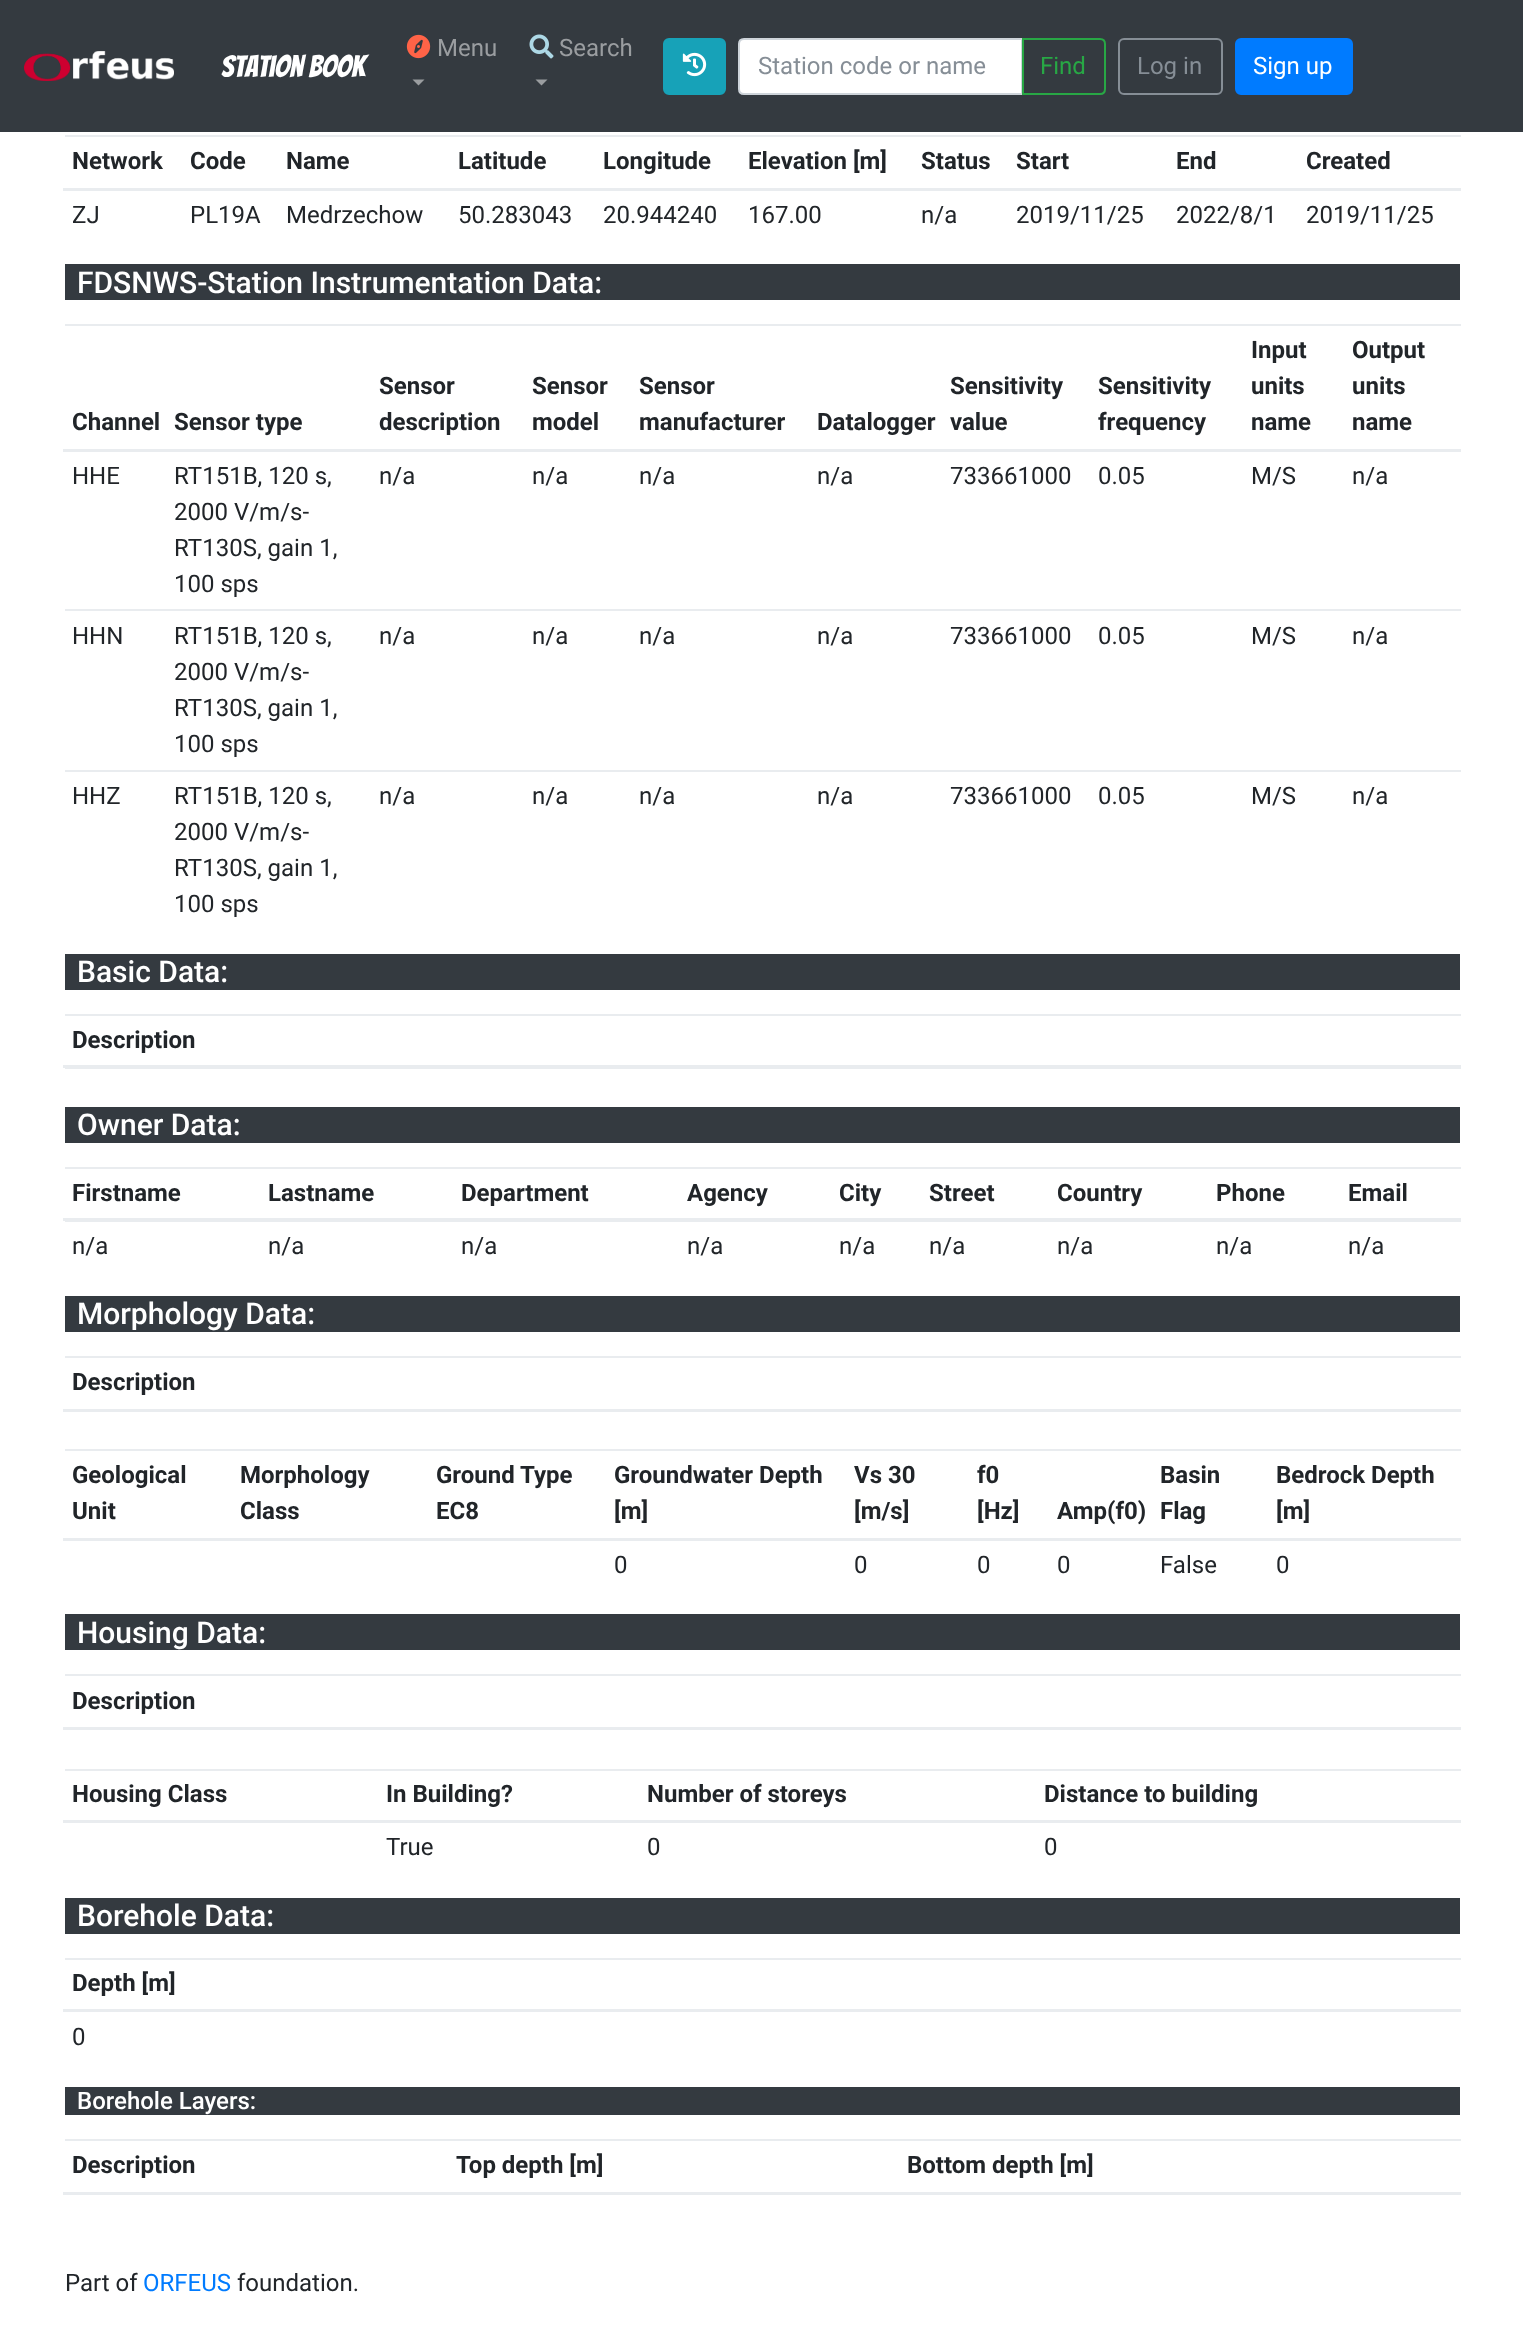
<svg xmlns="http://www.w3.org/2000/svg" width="1523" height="2326">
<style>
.a{font:30px Bangers;fill:#fff}
.b{font:24px Roboto;fill:#9a9da0}
.c{font:24px Roboto;fill:#868e96}
.d{font:24px Roboto;fill:#28a745}
.e{font:24px Roboto;fill:#fff}
.f{font:bold 24px Roboto;fill:#212529}
.g{font:24px Roboto;fill:#212529}
.h{font:500 30px Roboto;fill:#fff}
.i{font:500 24px Roboto;fill:#fff}
.j{font:24px Roboto;fill:#007bff}
</style>
<rect width="100%" height="100%" fill="#fff"/>
<path fill="#343a40" d="M0 0h1523v132H0z"/>
<image href="1.png" x="24" y="51" width="150" height="30"/>
<image href="2.png" x="406" y="34" width="25" height="25"/>
<path fill="#9a9da0" d="M412.5 79.5h12l-6 6z"/>
<image href="3.png" x="529" y="34" width="25" height="25"/>
<path fill="#9a9da0" d="M535.5 79.5h12l-6 6z"/>
<rect fill="#17a2b8" stroke="#17a2b8" stroke-width="2" x="664" y="39" width="61" height="55" rx="5"/>
<image href="4.png" x="682" y="52" width="25" height="25"/>
<path fill="#fff" stroke="#ced4da" stroke-width="2" d="M744 39h278v55h-278c-3 0-5-2-5-5v-45c0-3 2-5 5-5z"/>
<path fill="none" stroke="#28a745" stroke-width="2" d="M1023 39h77c3 0 5 2 5 5v45c0 3-2 5-5 5h-77z"/>
<rect fill="none" stroke="#868e96" stroke-width="2" x="1119" y="39" width="103" height="55" rx="5"/>
<rect fill="#007bff" stroke="#007bff" stroke-width="2" x="1236" y="39" width="116" height="55" rx="5"/>
<path fill="#e9ecef" d="M65 135h1396v2H65z"/>
<path fill="#e9ecef" d="M63 188h1398v3H63z"/>
<path fill="#343a40" d="M65 264h1395v36H65z"/>
<path fill="#e9ecef" d="M65 324h1396v2H65z"/>
<path fill="#e9ecef" d="M63 449h1398v3H63z"/>
<path fill="#e9ecef" d="M65 609h1396v2H65z"/>
<path fill="#e9ecef" d="M65 770h1396v2H65z"/>
<path fill="#343a40" d="M65 954h1395v36H65z"/>
<path fill="#e9ecef" d="M65 1014h1396v2H65z"/>
<path fill="#e9ecef" d="M63 1065h1398v3H63z"/>
<path fill="#e9ecef" d="M65 1068h1396v1H65z"/>
<path fill="#343a40" d="M65 1107h1395v36H65z"/>
<path fill="#e9ecef" d="M65 1167h1396v2H65z"/>
<path fill="#e9ecef" d="M63 1218h1398v3H63z"/>
<path fill="#e9ecef" d="M65 1221h1396v1H65z"/>
<path fill="#343a40" d="M65 1296h1395v36H65z"/>
<path fill="#e9ecef" d="M65 1356h1396v2H65z"/>
<path fill="#e9ecef" d="M63 1409h1398v3H63z"/>
<path fill="#e9ecef" d="M65 1449h1396v2H65z"/>
<path fill="#e9ecef" d="M63 1538h1398v3H63z"/>
<path fill="#343a40" d="M65 1614h1395v36H65z"/>
<path fill="#e9ecef" d="M65 1674h1396v2H65z"/>
<path fill="#e9ecef" d="M63 1727h1398v3H63z"/>
<path fill="#e9ecef" d="M65 1769h1396v2H65z"/>
<path fill="#e9ecef" d="M63 1820h1398v3H63z"/>
<path fill="#343a40" d="M65 1898h1395v36H65z"/>
<path fill="#e9ecef" d="M65 1958h1396v2H65z"/>
<path fill="#e9ecef" d="M63 2009h1398v3H63z"/>
<path fill="#343a40" d="M65 2087h1395v28H65z"/>
<path fill="#e9ecef" d="M65 2139h1396v2H65z"/>
<path fill="#e9ecef" d="M63 2192h1398v3H63z"/>
<text class="a" x="221" y="77">Station Book</text>
<text class="b" x="437" y="56">Menu</text>
<text class="b" x="559" y="56">Search</text>
<text class="c" x="758" y="74">Station code or name</text>
<text class="d" x="1040" y="74">Find</text>
<text class="c" x="1137" y="74">Log in</text>
<text class="e" x="1253" y="74">Sign up</text>
<text class="f" x="72" y="169">Network</text>
<text class="f" x="190" y="169">Code</text>
<text class="f" x="286" y="169">Name</text>
<text class="f" x="458" y="169">Latitude</text>
<text class="f" x="603" y="169">Longitude</text>
<text class="f" x="748" y="169">Elevation [m]</text>
<text class="f" x="921" y="169">Status</text>
<text class="f" x="1016" y="169">Start</text>
<text class="f" x="1176" y="169">End</text>
<text class="f" x="1306" y="169">Created</text>
<text class="g" x="72" y="223">ZJ</text>
<text class="g" x="190" y="223">PL19A</text>
<text class="g" x="286" y="223">Medrzechow</text>
<text class="g" x="458" y="223">50.283043</text>
<text class="g" x="603" y="223">20.944240</text>
<text class="g" x="748" y="223">167.00</text>
<text class="g" x="921" y="223">n/a</text>
<text class="g" x="1016" y="223">2019/11/25</text>
<text class="g" x="1176" y="223">2022/8/1</text>
<text class="g" x="1306" y="223">2019/11/25</text>
<text class="h" x="77" y="293">FDSNWS-Station Instrumentation Data:</text>
<text class="f" x="72" y="430">Channel</text>
<text class="f" x="174" y="430">Sensor type</text>
<text class="f" x="379" y="394">Sensor</text>
<text class="f" x="379" y="430">description</text>
<text class="f" x="532" y="394">Sensor</text>
<text class="f" x="532" y="430">model</text>
<text class="f" x="639" y="394">Sensor</text>
<text class="f" x="639" y="430">manufacturer</text>
<text class="f" x="817" y="430">Datalogger</text>
<text class="f" x="950" y="394">Sensitivity</text>
<text class="f" x="950" y="430">value</text>
<text class="f" x="1098" y="394">Sensitivity</text>
<text class="f" x="1098" y="430">frequency</text>
<text class="f" x="1251" y="358">Input</text>
<text class="f" x="1251" y="394">units</text>
<text class="f" x="1251" y="430">name</text>
<text class="f" x="1352" y="358">Output</text>
<text class="f" x="1352" y="394">units</text>
<text class="f" x="1352" y="430">name</text>
<text class="g" x="72" y="484">HHE</text>
<text class="g" x="174" y="484">RT151B, 120 s,</text>
<text class="g" x="174" y="520">2000 V/m/s-</text>
<text class="g" x="174" y="556">RT130S, gain 1,</text>
<text class="g" x="174" y="592">100 sps</text>
<text class="g" x="379" y="484">n/a</text>
<text class="g" x="532" y="484">n/a</text>
<text class="g" x="639" y="484">n/a</text>
<text class="g" x="817" y="484">n/a</text>
<text class="g" x="950" y="484">733661000</text>
<text class="g" x="1098" y="484">0.05</text>
<text class="g" x="1251" y="484">M/S</text>
<text class="g" x="1352" y="484">n/a</text>
<text class="g" x="72" y="644">HHN</text>
<text class="g" x="174" y="644">RT151B, 120 s,</text>
<text class="g" x="174" y="680">2000 V/m/s-</text>
<text class="g" x="174" y="716">RT130S, gain 1,</text>
<text class="g" x="174" y="752">100 sps</text>
<text class="g" x="379" y="644">n/a</text>
<text class="g" x="532" y="644">n/a</text>
<text class="g" x="639" y="644">n/a</text>
<text class="g" x="817" y="644">n/a</text>
<text class="g" x="950" y="644">733661000</text>
<text class="g" x="1098" y="644">0.05</text>
<text class="g" x="1251" y="644">M/S</text>
<text class="g" x="1352" y="644">n/a</text>
<text class="g" x="72" y="804">HHZ</text>
<text class="g" x="174" y="804">RT151B, 120 s,</text>
<text class="g" x="174" y="840">2000 V/m/s-</text>
<text class="g" x="174" y="876">RT130S, gain 1,</text>
<text class="g" x="174" y="912">100 sps</text>
<text class="g" x="379" y="804">n/a</text>
<text class="g" x="532" y="804">n/a</text>
<text class="g" x="639" y="804">n/a</text>
<text class="g" x="817" y="804">n/a</text>
<text class="g" x="950" y="804">733661000</text>
<text class="g" x="1098" y="804">0.05</text>
<text class="g" x="1251" y="804">M/S</text>
<text class="g" x="1352" y="804">n/a</text>
<text class="h" x="77" y="982">Basic Data:</text>
<text class="f" x="72" y="1048">Description</text>
<text class="h" x="77" y="1135">Owner Data:</text>
<text class="f" x="72" y="1201">Firstname</text>
<text class="f" x="268" y="1201">Lastname</text>
<text class="f" x="461" y="1201">Department</text>
<text class="f" x="687" y="1201">Agency</text>
<text class="f" x="839" y="1201">City</text>
<text class="f" x="929" y="1201">Street</text>
<text class="f" x="1057" y="1201">Country</text>
<text class="f" x="1216" y="1201">Phone</text>
<text class="f" x="1348" y="1201">Email</text>
<text class="g" x="72" y="1254">n/a</text>
<text class="g" x="268" y="1254">n/a</text>
<text class="g" x="461" y="1254">n/a</text>
<text class="g" x="687" y="1254">n/a</text>
<text class="g" x="839" y="1254">n/a</text>
<text class="g" x="929" y="1254">n/a</text>
<text class="g" x="1057" y="1254">n/a</text>
<text class="g" x="1216" y="1254">n/a</text>
<text class="g" x="1348" y="1254">n/a</text>
<text class="h" x="77" y="1324">Morphology Data:</text>
<text class="f" x="72" y="1390">Description</text>
<text class="f" x="72" y="1483">Geological</text>
<text class="f" x="72" y="1519">Unit</text>
<text class="f" x="240" y="1483">Morphology</text>
<text class="f" x="240" y="1519">Class</text>
<text class="f" x="436" y="1483">Ground Type</text>
<text class="f" x="436" y="1519">EC8</text>
<text class="f" x="614" y="1483">Groundwater Depth</text>
<text class="f" x="614" y="1519">[m]</text>
<text class="f" x="854" y="1483">Vs 30</text>
<text class="f" x="854" y="1519">[m/s]</text>
<text class="f" x="977" y="1483">f0</text>
<text class="f" x="977" y="1519">[Hz]</text>
<text class="f" x="1057" y="1519">Amp(f0)</text>
<text class="f" x="1160" y="1483">Basin</text>
<text class="f" x="1160" y="1519">Flag</text>
<text class="f" x="1276" y="1483">Bedrock Depth</text>
<text class="f" x="1276" y="1519">[m]</text>
<text class="g" x="614" y="1573">0</text>
<text class="g" x="854" y="1573">0</text>
<text class="g" x="977" y="1573">0</text>
<text class="g" x="1057" y="1573">0</text>
<text class="g" x="1160" y="1573">False</text>
<text class="g" x="1276" y="1573">0</text>
<text class="h" x="77" y="1643">Housing Data:</text>
<text class="f" x="72" y="1709">Description</text>
<text class="f" x="72" y="1802">Housing Class</text>
<text class="f" x="386" y="1802">In Building?</text>
<text class="f" x="647" y="1802">Number of storeys</text>
<text class="f" x="1044" y="1802">Distance to building</text>
<text class="g" x="386" y="1855">True</text>
<text class="g" x="647" y="1855">0</text>
<text class="g" x="1044" y="1855">0</text>
<text class="h" x="77" y="1926">Borehole Data:</text>
<text class="f" x="72" y="1991">Depth [m]</text>
<text class="g" x="72" y="2045">0</text>
<text class="i" x="77" y="2109">Borehole Layers:</text>
<text class="f" x="72" y="2173">Description</text>
<text class="f" x="456" y="2173">Top depth [m]</text>
<text class="f" x="907" y="2173">Bottom depth [m]</text>
<text class="g" x="65" y="2291">Part of</text>
<text class="j" x="143" y="2291">ORFEUS</text>
<text class="g" x="237" y="2291">foundation.</text>
</svg>
